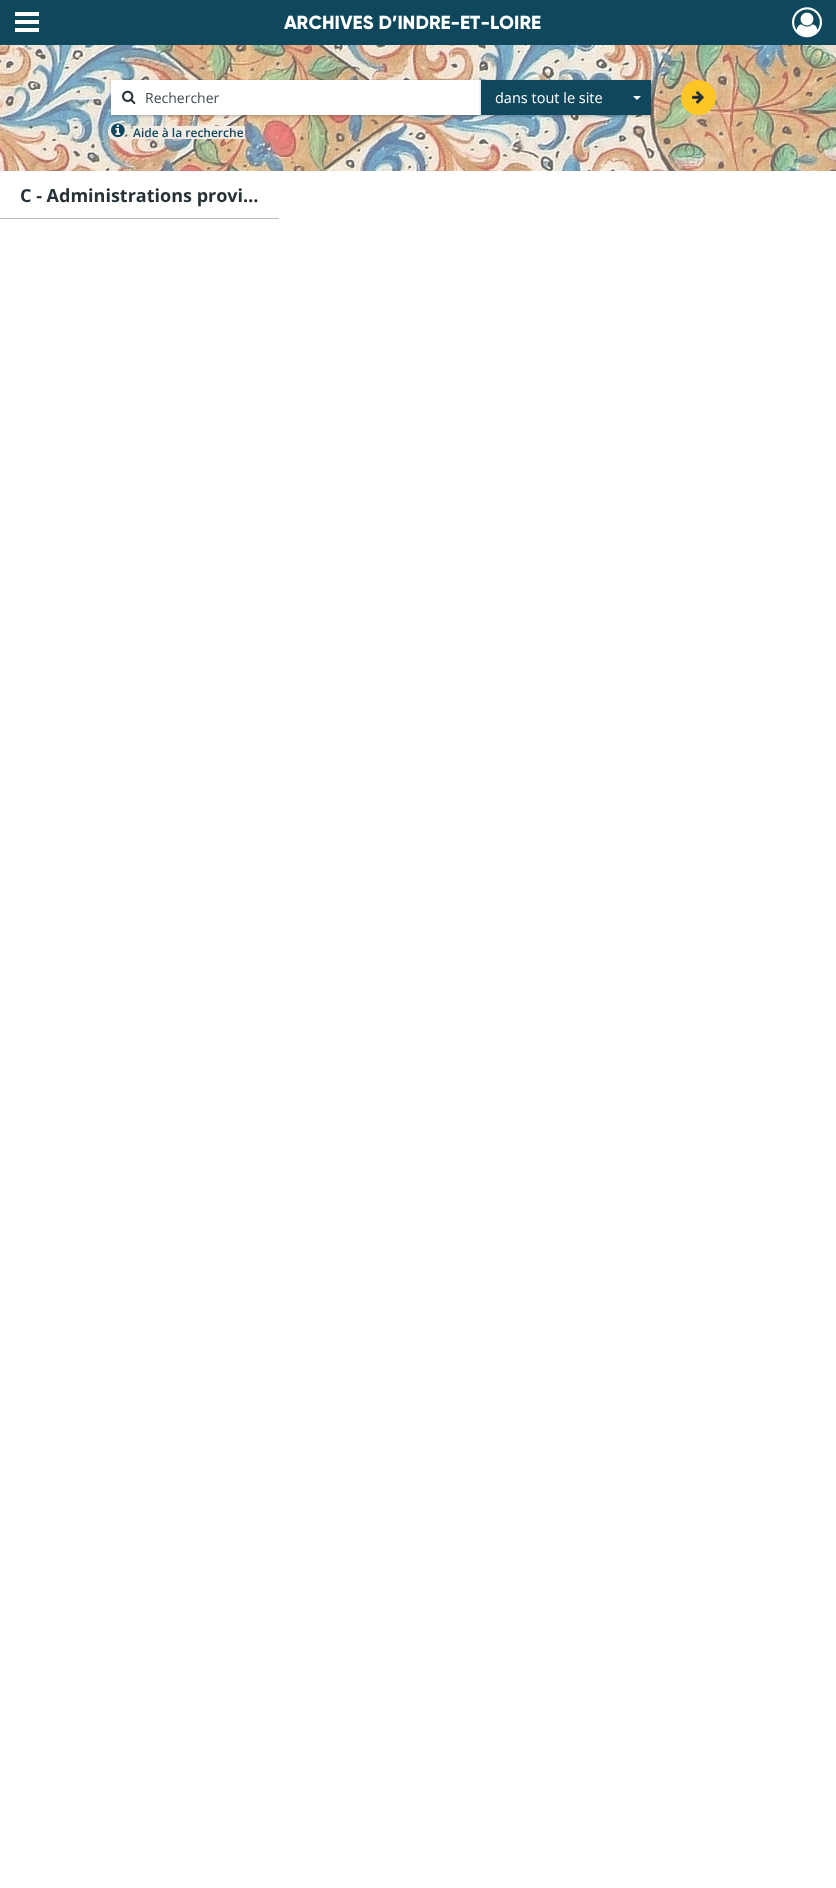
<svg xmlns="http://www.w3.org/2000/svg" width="836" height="1888">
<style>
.a{font:14px Open Sans;fill:#424b4f}
.b{font:14.5px Open Sans;fill:#fff}
.c{font:600 12px Open Sans;fill:#0f485d}
.d{font:bold 18px Open Sans;fill:#263238}
</style>
<rect width="100%" height="100%" fill="#fff"/>
<path fill="#0f485d" d="M0 0h836v45H0z"/>
<path fill="#fff" d="M15 12h24v4H15z"/>
<path fill="#fff" d="M15 20h24v4H15z"/>
<path fill="#fff" d="M15 28h24v4H15z"/>
<image href="1.png" x="284" y="15" width="257" height="15"/>
<image href="2.png" x="792" y="7" width="30" height="31"/>
<image href="3.png" x="0" y="45" width="836" height="126"/>
<path fill="#00000040" filter="blur(1.5px)" d="M111 81h370v35H111z"/>
<path fill="#fff" d="M111 80h370v35H111z"/>
<image href="4.png" x="122" y="90" width="14" height="14"/>
<path fill="#00000040" filter="blur(1.5px)" d="M481 81h170v35H481z"/>
<path fill="#0f485d" d="M481 80h170v35H481z"/>
<path fill="#fff" d="M633 96h8l-4 4z"/>
<circle fill="#fcc625" cx="698.5" cy="97.5" r="17.5"/>
<image href="5.png" x="692" y="91" width="12" height="13"/>
<image href="6.png" x="111" y="123" width="14" height="15"/>
<path fill="#babdc0" d="M0 218h279v1H0z"/>
<text class="a" x="145" y="103">Rechercher</text>
<text class="b" x="495" y="103">dans tout le site</text>
<text class="c" x="133" y="137">Aide à la recherche</text>
<text class="d" x="20" y="202">C - Administrations provi…</text>
</svg>
